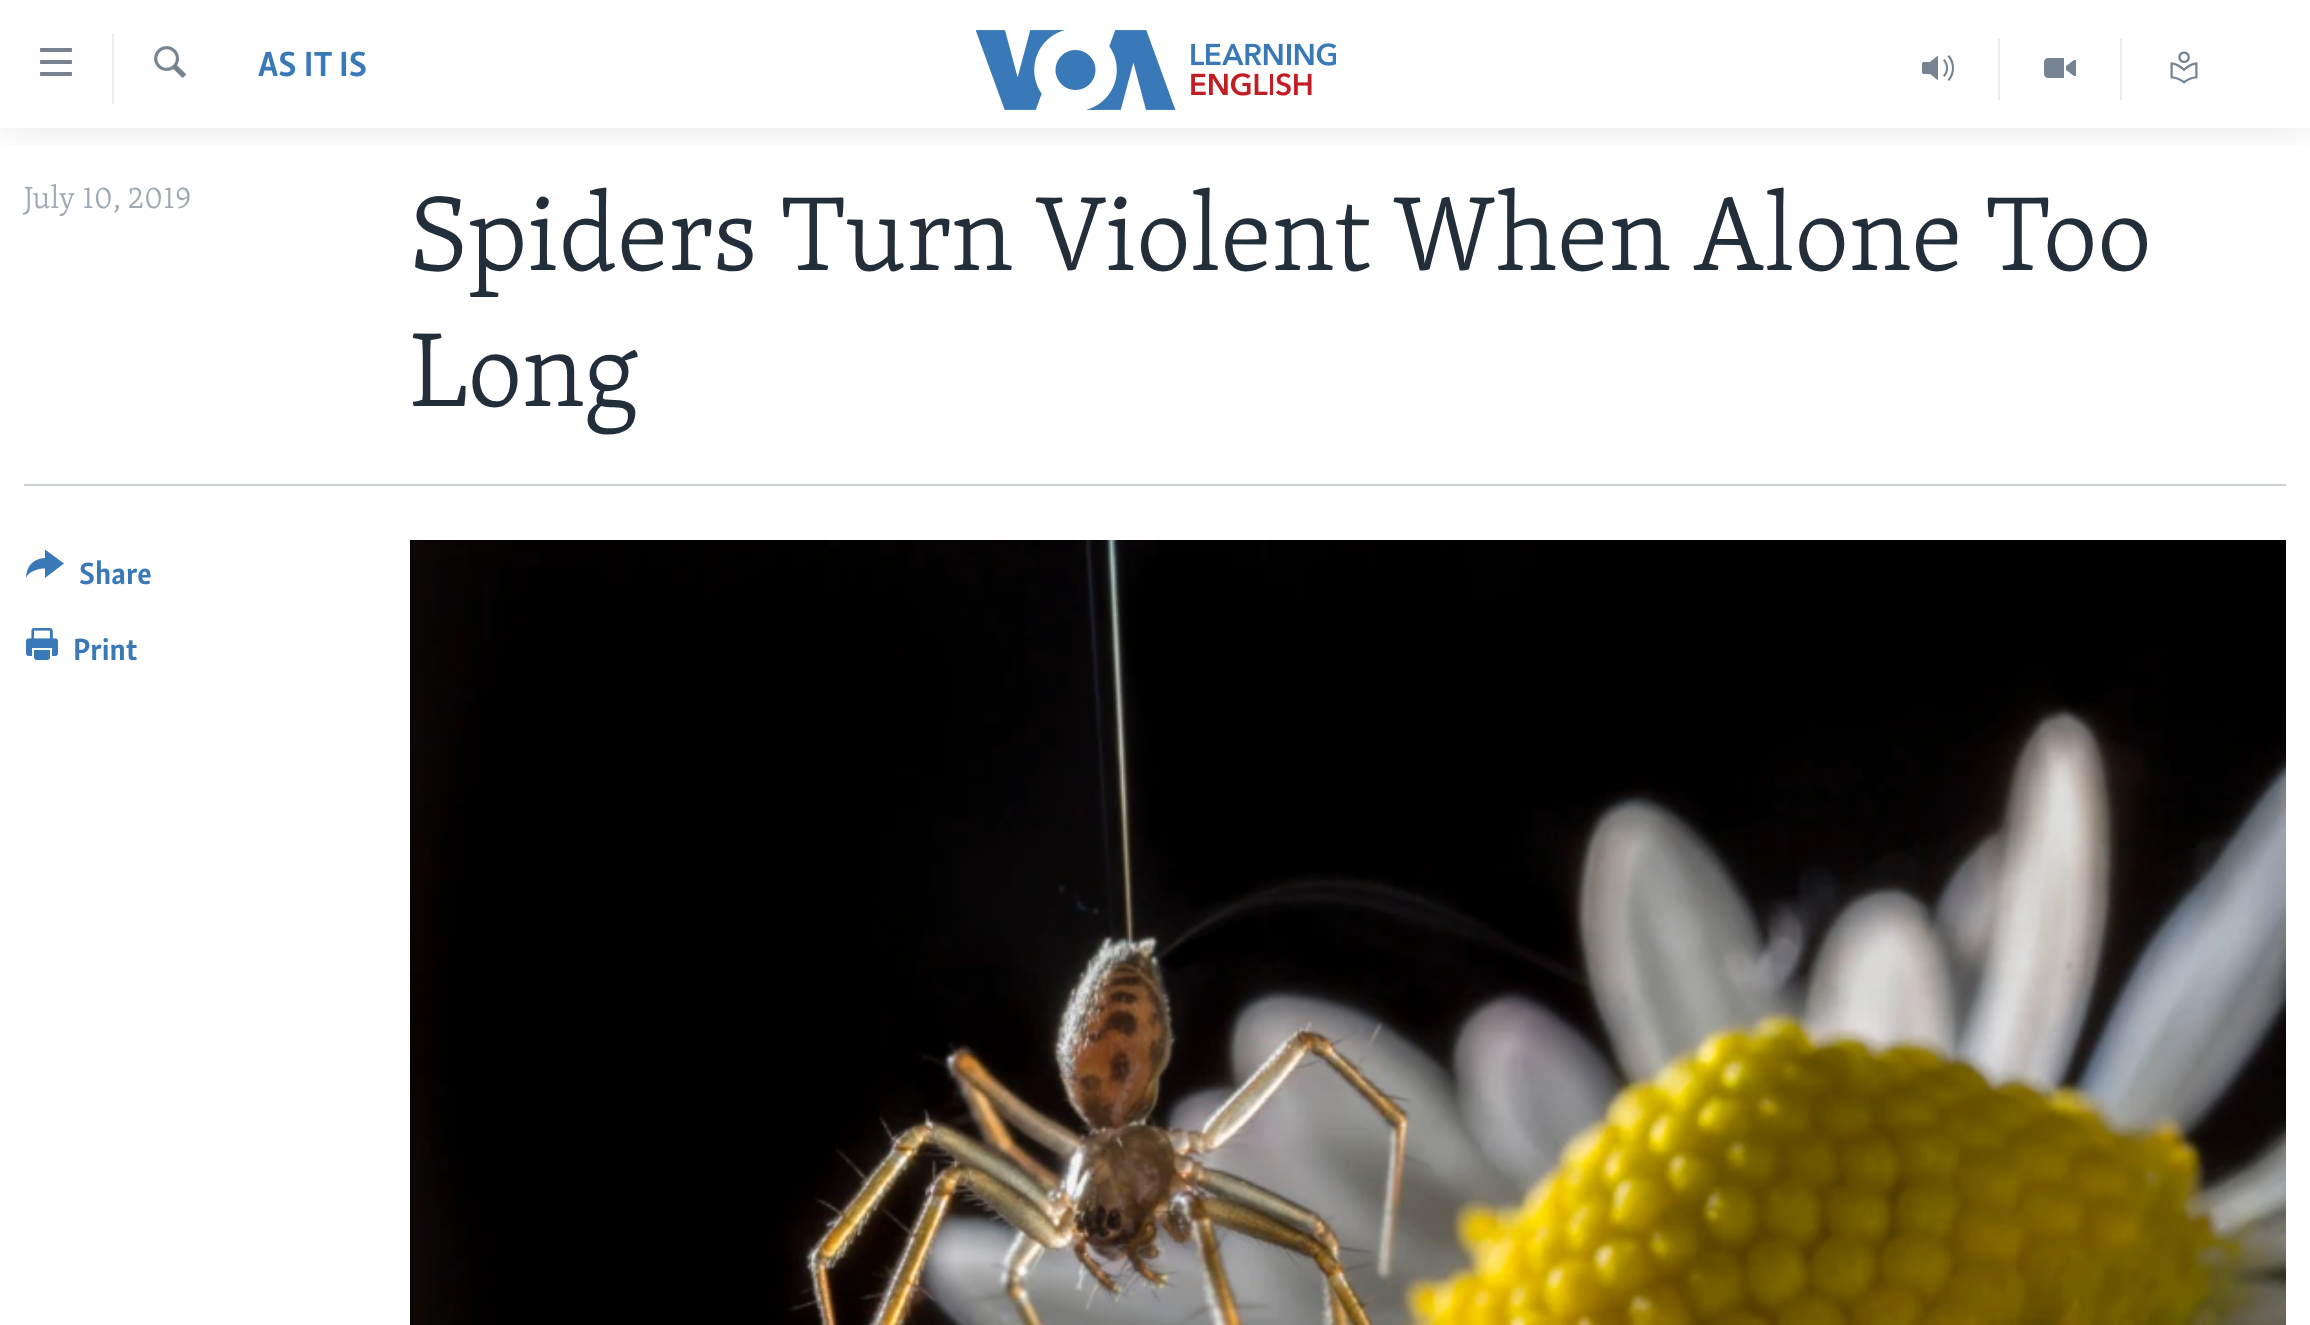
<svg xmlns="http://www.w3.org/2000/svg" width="2310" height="1325">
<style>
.a{font:bold 36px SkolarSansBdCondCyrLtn;fill:#3a79b7}
.b{font:300 31.5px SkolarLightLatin;fill:#a1aab4}
.c{font:300 108px SkolarLightLatin;fill:#222f3a}
.d{font:bold 31.5px SkolarSansBdCondCyrLtn;fill:#3a79b7}
</style>
<defs>
<clipPath id="clip1"><path d="M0 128h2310v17H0z"/></clipPath>
</defs>
<rect width="100%" height="100%" fill="#fff"/>
<g clip-path="url(#clip1)">
<path fill="#0000001a" filter="blur(20px)" d="M0 0h2310v128H0z"/>
</g>
<image href="1.png" x="40" y="48" width="32" height="28"/>
<path fill="#ebebeb" d="M112 34h2v70H112z"/>
<image href="2.png" x="154" y="46" width="32" height="32"/>
<image href="3.png" x="976" y="30" width="360" height="80"/>
<path fill="#ebebeb" d="M1998 38h2v62H1998z"/>
<image href="4.png" x="1922" y="55" width="32" height="26"/>
<path fill="#ebebeb" d="M2120 38h2v62H2120z"/>
<image href="5.png" x="2044" y="58" width="32" height="20"/>
<image href="6.png" x="2170" y="51" width="28" height="33"/>
<path fill="#cbd1d6" d="M24 484h2262v2H24z"/>
<path fill="#3a79b7" d="M26 578c.5-12 7-19.5 19-20v-8.5l19 14l-19 14.5v-9.5c-7 0-16 2.5-19 9.5z"/>
<image href="7.png" x="26" y="628" width="32" height="32"/>
<image href="8.png" x="410" y="540" width="1876" height="785"/>
<text class="a" x="258" y="76">AS IT IS</text>
<text class="b" x="24" y="208">July 10, 2019</text>
<text class="c" x="409" y="270">Spiders Turn Violent When Alone Too</text>
<text class="c" x="409" y="406">Long</text>
<text class="d" x="79" y="584">Share</text>
<text class="d" x="73" y="660">Print</text>
</svg>
